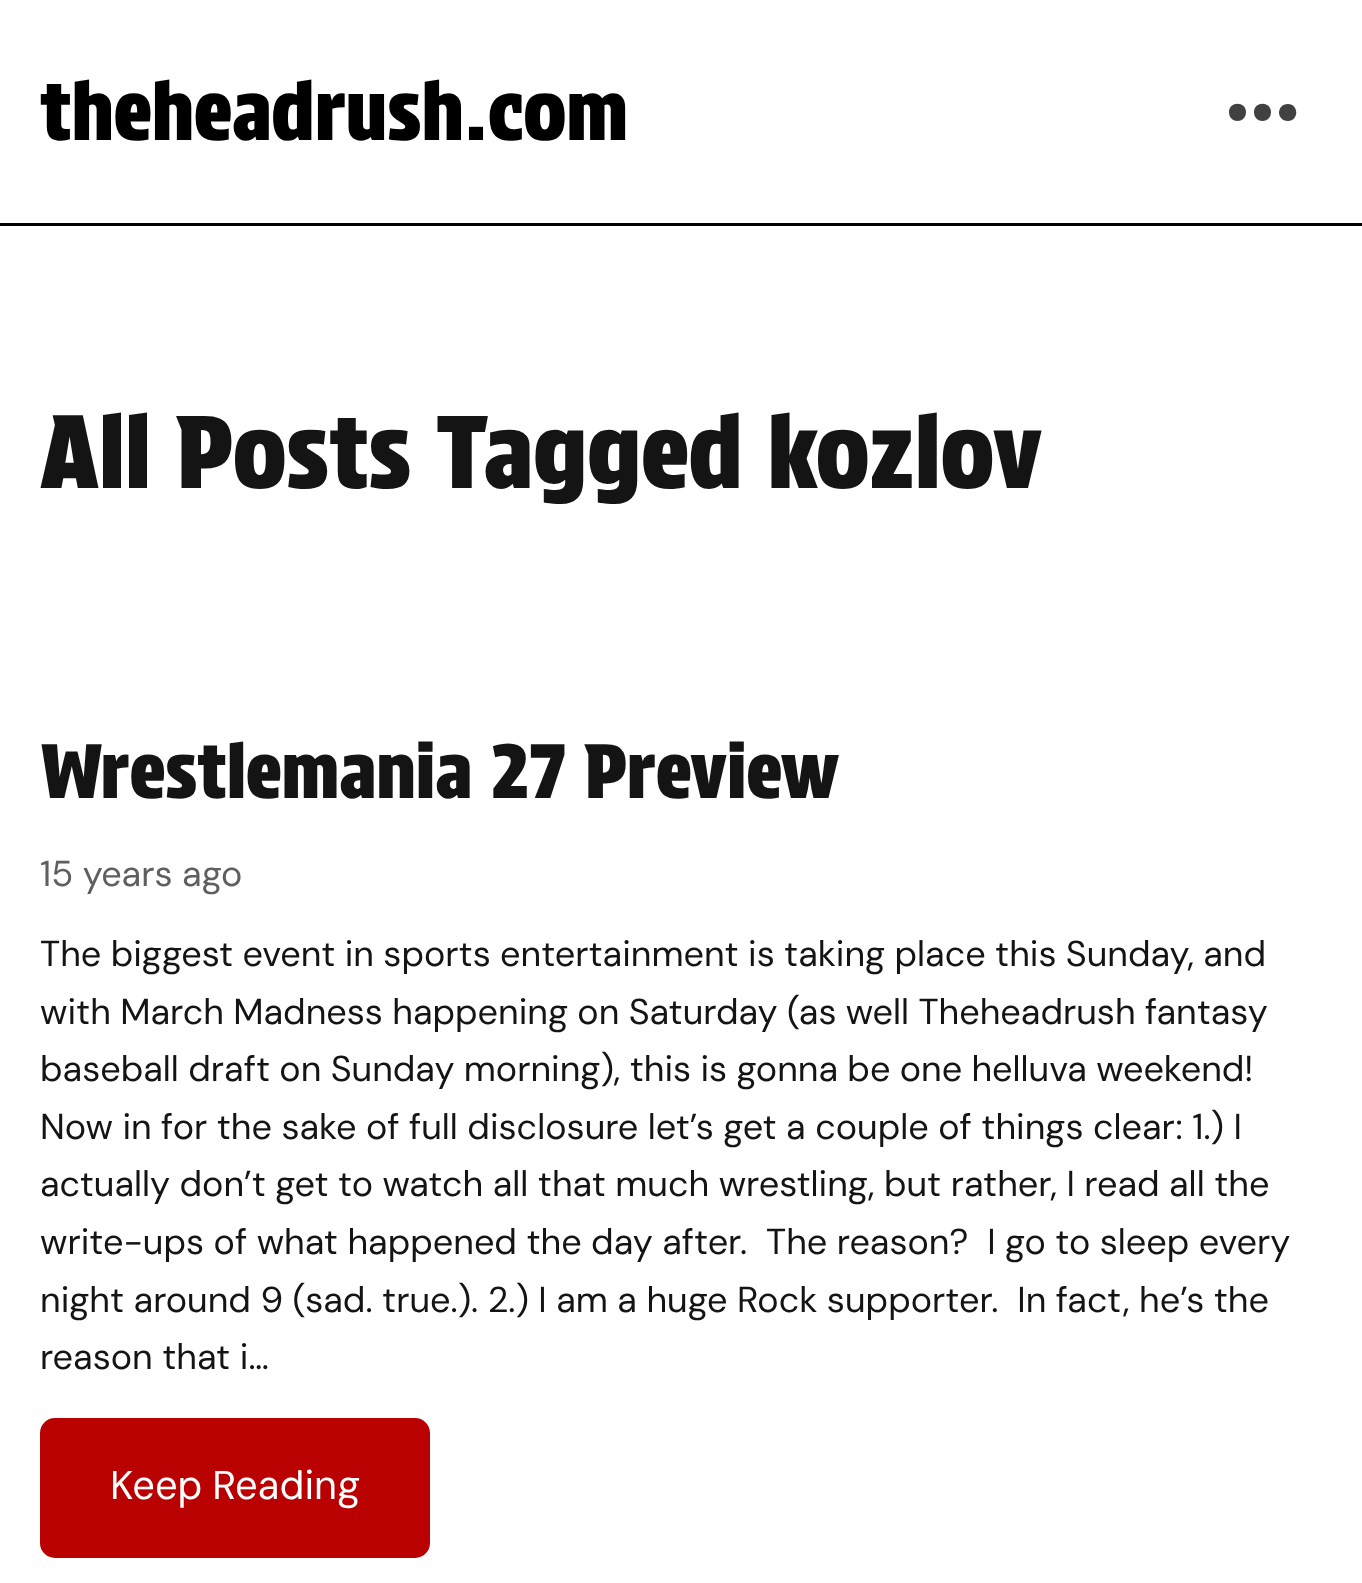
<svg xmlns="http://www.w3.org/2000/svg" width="1362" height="1583">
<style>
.a{font:80px Protest Strike;fill:#000}
.b{font:100px Protest Strike;fill:#141414}
.c{font:74.75px Protest Strike;fill:#141414}
.d{font:36px DM Sans;fill:#5f5f5f}
.e{font:36px DM Sans;fill:#141414}
.f{font:40px 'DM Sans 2';fill:#fff}
</style>
<rect width="100%" height="100%" fill="#fff"/>
<path fill="#000" d="M0 223h1362v3H0z"/>
<path fill="#414141" d="M1229 112c0-11 17-11 17 0c0 12-17 12-17 0zm25 0c0-11 17-11 17 0c0 12-17 12-17 0zm34-8c11 0 11 17 0 17c-12 0-12-17 0-17z"/>
<rect fill="#b90101" x="40" y="1418" width="390" height="140" rx="15"/>
<text class="a" x="40" y="140">theheadrush.com</text>
<text class="b" x="40" y="488">All Posts Tagged kozlov</text>
<text class="c" x="40" y="798">Wrestlemania 27 Preview</text>
<text class="d" x="40" y="886">15 years ago</text>
<text class="e" x="40" y="966" word-spacing="-0.25">The biggest event in sports entertainment is taking place this Sunday, and</text>
<text class="e" x="40" y="1024" word-spacing="-0.25">with March Madness happening on Saturday (as well Theheadrush fantasy</text>
<text class="e" x="40" y="1081" word-spacing="-0.25">baseball draft on Sunday morning), this is gonna be one helluva weekend!</text>
<text class="e" x="40" y="1139" word-spacing="-0.1">Now in for the sake of full disclosure let’s get a couple of things clear: 1.) I</text>
<text class="e" x="40" y="1196" word-spacing="-0.1">actually don’t get to watch all that much wrestling, but rather, I read all the</text>
<text class="e" xml:space="preserve" x="40" y="1254" word-spacing="-0.1">write-ups of what happened the day after.  The reason?  I go to sleep every</text>
<text class="e" xml:space="preserve" x="40" y="1312" word-spacing="-0.1">night around 9 (sad. true.). 2.) I am a huge Rock supporter.  In fact, he’s the</text>
<text class="e" x="40" y="1369">reason that i…</text>
<text class="f" x="110" y="1499" word-spacing="-1">Keep Reading</text>
</svg>
